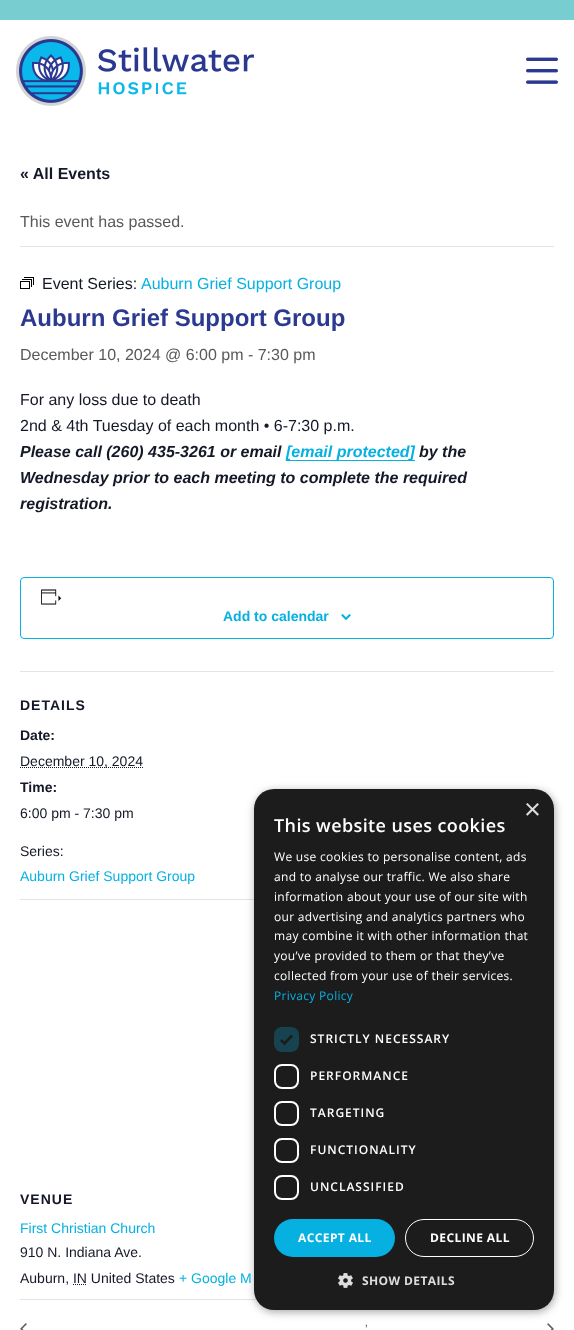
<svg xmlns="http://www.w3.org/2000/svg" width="574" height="1330">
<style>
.a{font:bold 16px Liberation Sans;fill:#141827}
.b{font:16px Liberation Sans;fill:#58595b}
.c{font:16px Liberation Sans;fill:#141827}
.d{font:16px Liberation Sans;fill:#06b1e2}
.e{font:bold 24px Liberation Sans;fill:#2b3990}
.f{font:italic bold 16px Liberation Sans;fill:#141827}
.g{font:italic bold 16px Liberation Sans;fill:#06b1e2}
.h{font:bold 14px Liberation Sans;fill:#06b1e2}
.i{font:bold 14px Liberation Sans;letter-spacing:1px;fill:#141827}
.j{font:bold 14px Liberation Sans;fill:#141827}
.k{font:14px Liberation Sans;fill:#141827}
.l{font:14px Liberation Sans;fill:#06b1e2}
.m{font:12px Liberation Sans;fill:#58595b}
.n{font:29px Liberation Sans;fill:#ddd}
.o{font:600 18px Open Sans;letter-spacing:0.4px;fill:#fff}
.p{font:12px Open Sans;letter-spacing:0.3px;fill:#fff}
.q{font:12px Open Sans;letter-spacing:0.3px;fill:#06b1e2}
.r{font:600 12px Open Sans;letter-spacing:1px;fill:#fff}
.s{font:bold 12px Open Sans;letter-spacing:0.4px;fill:#fff}
.t{font:bold 12px Open Sans;letter-spacing:0.4px;fill:#ddd}
</style>
<rect width="100%" height="100%" fill="#fff"/>
<path fill="#78cdd1" d="M0 0h574v20H0z"/>
<image href="1.png" x="16" y="36" width="238" height="70"/>
<image href="2.png" x="526" y="57" width="32" height="27"/>
<path fill="#e4e4e4" d="M20 246h534v1H20z"/>
<image href="3.png" x="20" y="277" width="14" height="12"/>
<path fill="#06b1e2" d="M286 460h129v1H286z"/>
<rect fill="none" stroke="#06b1e2" x="20.5" y="577.5" width="533" height="61" rx="3.5"/>
<image href="4.png" x="41" y="589" width="21" height="16"/>
<image href="5.png" x="341" y="614" width="10" height="6"/>
<path fill="#e4e4e4" d="M20 671h534v1H20z"/>
<path fill="none" stroke="#141827" stroke-dasharray="1 1" d="M20 767.5h123"/>
<path fill="#e4e4e4" d="M20 899h234v1H20z"/>
<path fill="none" stroke="#141827" stroke-dasharray="1 1" d="M73 1284.5h14"/>
<path fill="#e4e4e4" d="M20 1299h534v1H20z"/>
<image href="6.png" x="20" y="1323" width="7" height="7"/>
<image href="7.png" x="547" y="1323" width="7" height="7"/>
<rect fill="#00000059" filter="blur(4px)" x="255" y="791" width="300" height="521" rx="20"/>
<rect fill="#1c1c1c" x="254" y="789" width="300" height="521" rx="20"/>
<rect fill="#16434f" x="274" y="1027" width="25" height="25" rx="8"/>
<path fill="none" stroke="#1c1c1c" stroke-width="2.6" d="M281 1040l3.5 3.5l7.5-8"/>
<rect fill="none" stroke="#fff" stroke-width="2" x="275" y="1065" width="23" height="23" rx="7"/>
<rect fill="none" stroke="#fff" stroke-width="2" x="275" y="1102" width="23" height="23" rx="7"/>
<rect fill="none" stroke="#fff" stroke-width="2" x="275" y="1139" width="23" height="23" rx="7"/>
<rect fill="none" stroke="#fff" stroke-width="2" x="275" y="1176" width="23" height="23" rx="7"/>
<rect fill="#06b1e2" x="274" y="1219" width="121" height="38" rx="19"/>
<rect fill="none" stroke="#fff" x="405.5" y="1219.5" width="128" height="37" rx="18.5"/>
<image href="8.png" x="338" y="1273" width="15" height="15"/>
<text class="a" x="20" y="179">« All Events</text>
<text class="b" x="20" y="227">This event has passed.</text>
<text class="c" x="42" y="289">Event Series:</text>
<text class="d" x="141" y="289">Auburn Grief Support Group</text>
<text class="e" x="20" y="326">Auburn Grief Support Group</text>
<text class="b" x="20" y="360">December 10, 2024 @ 6:00 pm - 7:30 pm</text>
<text class="c" x="20" y="405">For any loss due to death</text>
<text class="c" x="20" y="431">2nd &amp; 4th Tuesday of each month • 6-7:30 p.m.</text>
<text class="f" x="20" y="457">Please call (260) 435-3261 or email</text>
<text class="g" x="286" y="457">[email protected]</text>
<text class="f" x="419" y="457">by the</text>
<text class="f" x="20" y="483">Wednesday prior to each meeting to complete the required</text>
<text class="f" x="20" y="509">registration.</text>
<text class="h" x="223" y="621">Add to calendar</text>
<text class="i" x="20" y="710">DETAILS</text>
<text class="j" x="20" y="740">Date:</text>
<text class="k" x="20" y="766">December 10, 2024</text>
<text class="j" x="20" y="792">Time:</text>
<text class="k" x="20" y="818">6:00 pm - 7:30 pm</text>
<text class="k" x="20" y="856">Series:</text>
<text class="l" x="20" y="881">Auburn Grief Support Group</text>
<text class="i" x="20" y="1204">VENUE</text>
<text class="l" x="20" y="1233">First Christian Church</text>
<text class="k" x="20" y="1257">910 N. Indiana Ave.</text>
<text class="k" x="20" y="1283">Auburn, IN United States</text>
<text class="l" x="179" y="1283">+ Google M</text>
<text class="m" x="365" y="1333">’</text>
<text class="n" x="524" y="819">×</text>
<text class="o" x="274" y="832">This website uses cookies</text>
<text class="p" x="274" y="861">We use cookies to personalise content, ads</text>
<text class="p" x="274" y="881">and to analyse our traffic. We also share</text>
<text class="p" x="274" y="901">information about your use of our site with</text>
<text class="p" x="274" y="921">our advertising and analytics partners who</text>
<text class="p" x="274" y="940">may combine it with other information that</text>
<text class="p" x="274" y="960">you’ve provided to them or that they’ve</text>
<text class="p" x="274" y="980">collected from your use of their services.</text>
<text class="q" x="274" y="1000">Privacy Policy</text>
<text class="r" x="310" y="1043">STRICTLY NECESSARY</text>
<text class="r" x="310" y="1080">PERFORMANCE</text>
<text class="r" x="310" y="1117">TARGETING</text>
<text class="r" x="310" y="1154">FUNCTIONALITY</text>
<text class="r" x="310" y="1191">UNCLASSIFIED</text>
<text class="s" x="298" y="1242">ACCEPT ALL</text>
<text class="s" x="430" y="1242">DECLINE ALL</text>
<text class="t" x="362" y="1285">SHOW DETAILS</text>
</svg>
